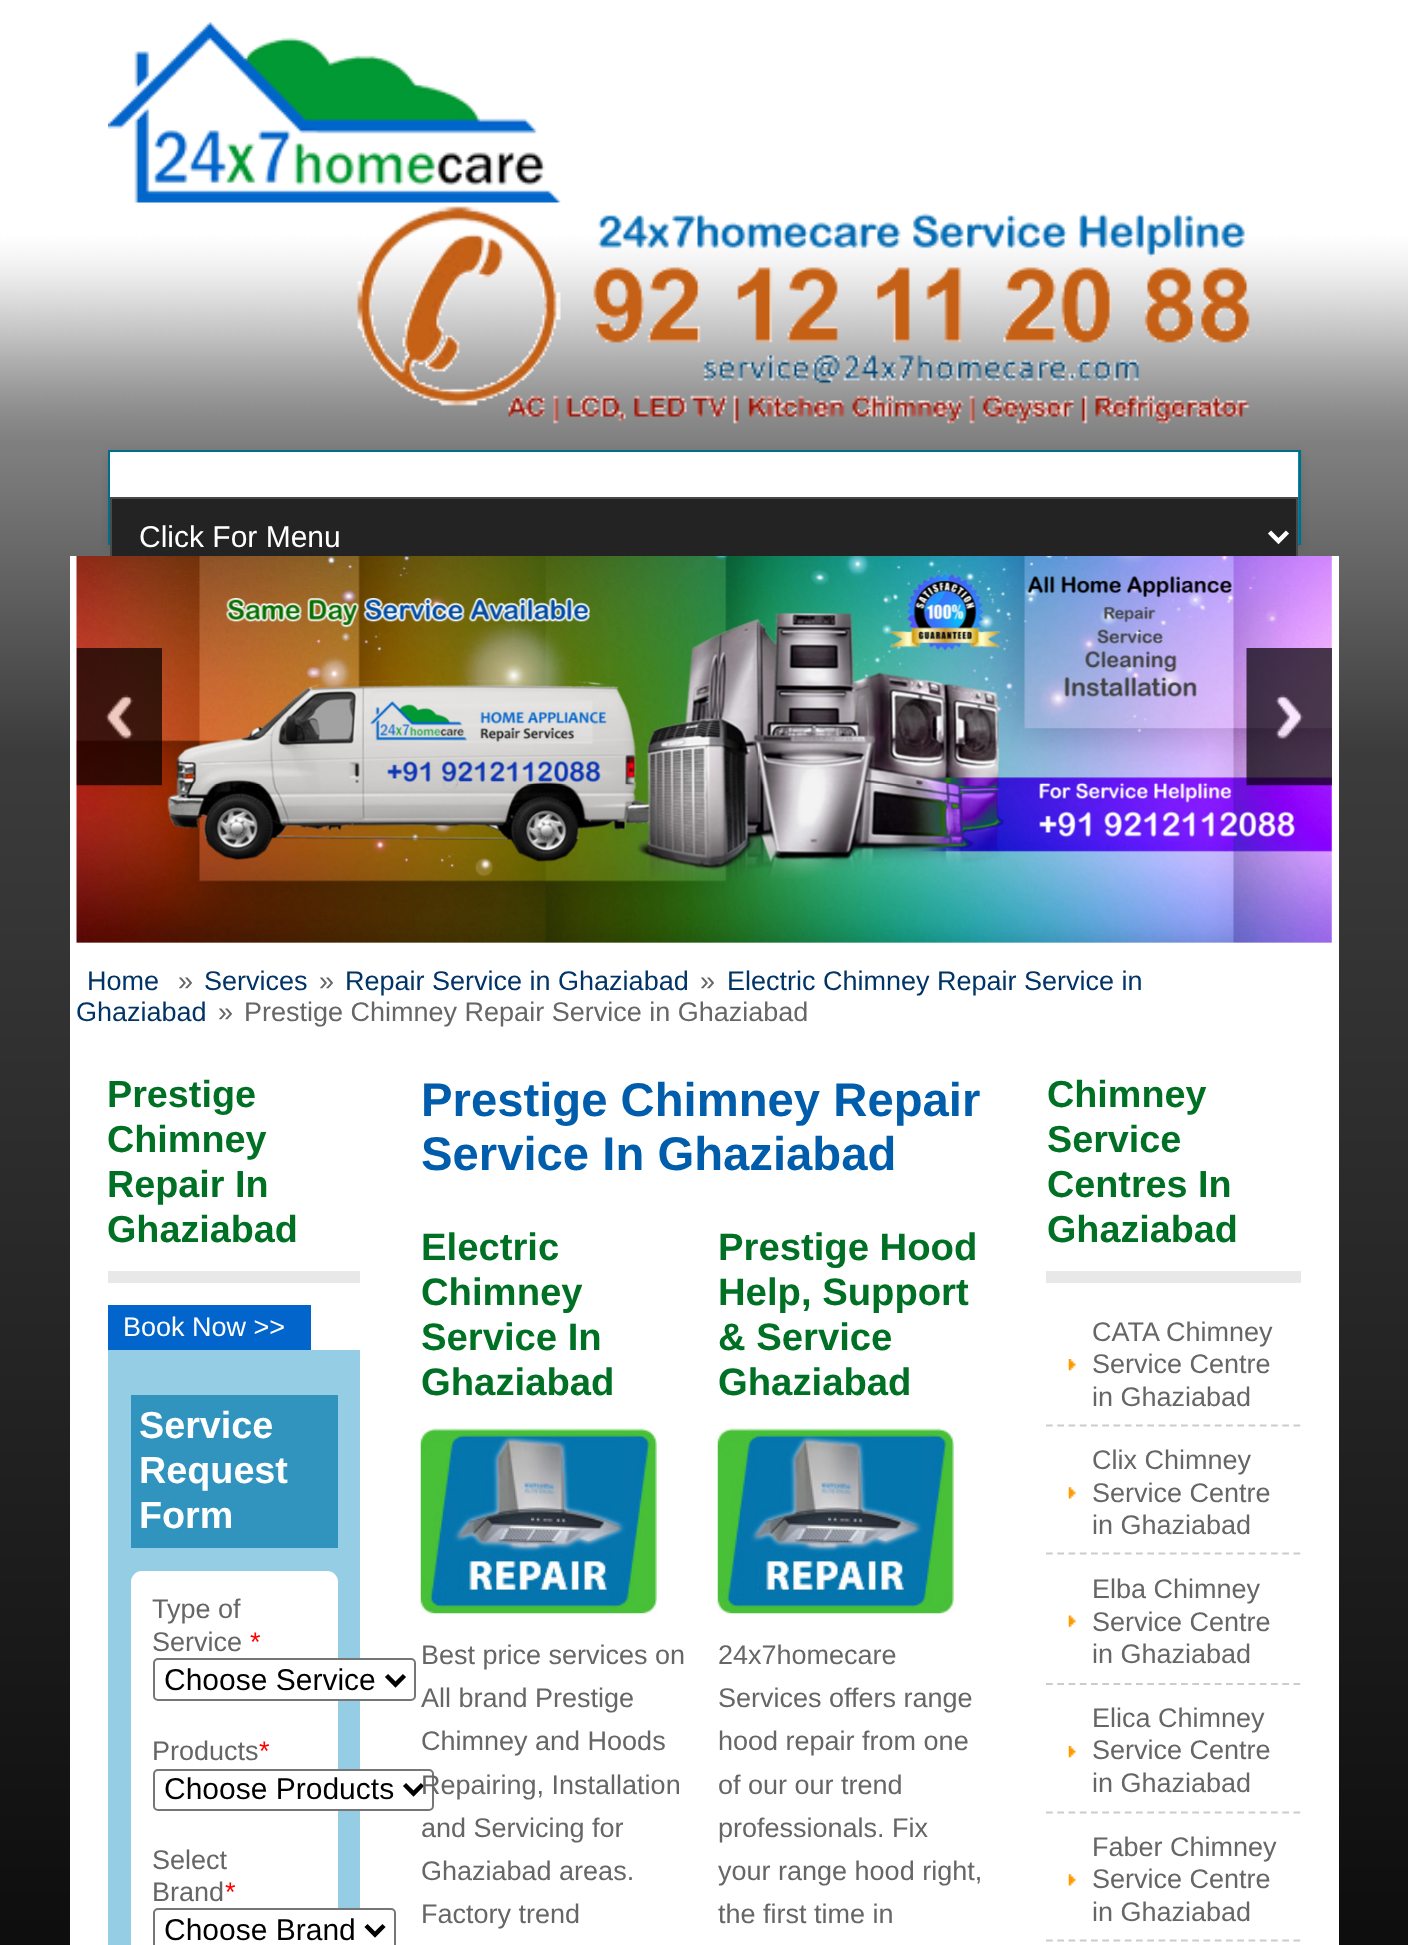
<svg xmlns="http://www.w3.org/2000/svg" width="1408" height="1945">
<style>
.a{font:30px Liberation Sans;fill:#fff}
.b{font:27px Liberation Sans;fill:#036}
.c{font:27px Liberation Sans;fill:#666}
.d{font:bold 37.75px Liberation Sans;fill:#007025}
.e{font:27px Liberation Sans;fill:#fff}
.f{font:bold 37.75px Liberation Sans;fill:#fff}
.g{font:27px Liberation Sans;fill:#f00}
.h{font:30px Liberation Sans;fill:#000}
.i{font:bold 47.25px Liberation Sans;fill:#005dab}
.j{font:bold 38.25px Liberation Sans;fill:#007025}
</style>
<defs>
<linearGradient id="g1" gradientUnits="userSpaceOnUse" x1="110" y1="452" x2="110" y2="542"><stop offset="0" stop-color="#008ead"/><stop offset="1" stop-color="#007b9d"/></linearGradient>
<linearGradient id="g2" gradientUnits="userSpaceOnUse" x1="110" y1="542" x2="110" y2="632"><stop offset="0" stop-color="#008ead"/><stop offset="1" stop-color="#007b9d"/></linearGradient>
</defs>
<rect width="100%" height="100%" fill="#fff"/>
<image href="1.png" x="0" y="0" width="1408" height="1945"/>
<image href="2.png" x="108" y="22" width="453" height="181"/>
<image href="3.png" x="357" y="206" width="893" height="218"/>
<path fill="#0000001a" filter="blur(4.5px)" d="M108 452h1193v95H108z"/>
<path fill="url(#g1)" d="M1298 452h1v90H1298z"/>
<path fill="url(#g2)" d="M1298 542h3v1H1298z"/>
<path fill="none" stroke="#006e8b" stroke-width="2" d="M109 451h1191v93H109z"/>
<path fill="#fff" d="M110 452h1188v45H110z"/>
<path fill="#232323" d="M112 499h1184v57H112z"/>
<path fill="none" stroke="#494949" stroke-width="2" d="M111 498h1186v77H111z"/>
<path fill="none" stroke="#fff" stroke-width="4.5" d="M1269.5 532l9 9l9-9"/>
<path fill="#fff" d="M70 556h1269v1389H70z"/>
<image href="4.png" x="76" y="556" width="1256" height="387"/>
<image href="5.png" x="76" y="648" width="86" height="138"/>
<image href="6.png" x="1246" y="648" width="86" height="138"/>
<path fill="#e8e8e8" d="M108 1271h252v12H108z"/>
<path fill="#0165cc" d="M108 1305h203v45H108z"/>
<path fill="#95cde5" d="M108 1350h252v595H108z"/>
<path fill="#3094be" d="M131 1395h207v153H131z"/>
<rect fill="#fff" x="131" y="1571" width="207" height="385" rx="11"/>
<rect fill="#fff" stroke="#767676" stroke-width="2" x="154" y="1659" width="261" height="41" rx="4"/>
<path fill="none" stroke="#000" stroke-width="4.5" d="M386.5 1675.5l9 9l9-9"/>
<rect fill="#fff" stroke="#767676" stroke-width="2" x="154" y="1770" width="279" height="40" rx="4"/>
<path fill="none" stroke="#000" stroke-width="4.5" d="M404.5 1784.5l9 9l9-9"/>
<rect fill="#fff" stroke="#767676" stroke-width="2" x="154" y="1909" width="241" height="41" rx="4"/>
<path fill="none" stroke="#000" stroke-width="4.5" d="M366 1925.5l9 9l9-9"/>
<image href="7.png" x="420" y="1428" width="237" height="186"/>
<image href="7.png" x="717" y="1428" width="237" height="186"/>
<path fill="#e8e8e8" d="M1046 1271h255v12H1046z"/>
<image href="8.png" x="1068" y="1359" width="8" height="12"/>
<path fill="none" stroke="#ccc" stroke-width="2.2" stroke-dasharray="6.75 4.5" d="M1046 1425.5h254.5"/>
<image href="9.png" x="1068" y="1487" width="8" height="12"/>
<path fill="none" stroke="#ccc" stroke-width="2.2" stroke-dasharray="6.75 4.5" d="M1046 1553.5h254.5"/>
<image href="10.png" x="1068" y="1615" width="8" height="12"/>
<path fill="none" stroke="#ccc" stroke-width="2.2" stroke-dasharray="6.75 4.5" d="M1046 1684h254.5"/>
<image href="8.png" x="1068" y="1746" width="8" height="12"/>
<path fill="none" stroke="#ccc" stroke-width="2.2" stroke-dasharray="6.75 4.5" d="M1046 1812.5h254.5"/>
<image href="9.png" x="1068" y="1874" width="8" height="12"/>
<path fill="none" stroke="#ccc" stroke-width="2.2" stroke-dasharray="6.75 4.5" d="M1046 1940.5h254.5"/>
<text class="a" x="139" y="547">Click For Menu</text>
<text class="b" x="87" y="990">Home</text>
<text class="c" x="178" y="990">»</text>
<text class="b" x="204" y="990">Services</text>
<text class="c" x="319" y="990">»</text>
<text class="b" x="345" y="990">Repair Service in Ghaziabad</text>
<text class="c" x="700" y="990">»</text>
<text class="b" x="727" y="990">Electric Chimney Repair Service in</text>
<text class="b" x="76" y="1021">Ghaziabad</text>
<text class="c" x="218" y="1021">»</text>
<text class="c" x="244" y="1021">Prestige Chimney Repair Service in Ghaziabad</text>
<text class="d" x="107" y="1107">Prestige</text>
<text class="d" x="107" y="1152">Chimney</text>
<text class="d" x="107" y="1197">Repair In</text>
<text class="d" x="107" y="1242">Ghaziabad</text>
<text class="e" x="123" y="1336">Book Now &gt;&gt;</text>
<text class="f" x="139" y="1438">Service</text>
<text class="f" x="139" y="1483">Request</text>
<text class="f" x="139" y="1528">Form</text>
<text class="c" x="152" y="1618">Type of</text>
<text class="c" x="152" y="1651">Service</text>
<text class="g" x="250" y="1651">*</text>
<text class="h" x="164" y="1690">Choose Service</text>
<text class="c" x="152" y="1760">Products</text>
<text class="g" x="259" y="1760">*</text>
<text class="h" x="164" y="1799">Choose Products</text>
<text class="c" x="152" y="1869">Select</text>
<text class="c" x="152" y="1901">Brand</text>
<text class="g" x="225" y="1901">*</text>
<text class="h" x="164" y="1940">Choose Brand</text>
<text class="i" x="421" y="1116">Prestige Chimney Repair</text>
<text class="i" x="421" y="1170">Service In Ghaziabad</text>
<text class="j" x="421" y="1260">Electric</text>
<text class="j" x="421" y="1305">Chimney</text>
<text class="j" x="421" y="1350">Service In</text>
<text class="j" x="421" y="1395">Ghaziabad</text>
<text class="c" x="421" y="1664">Best price services on</text>
<text class="c" x="421" y="1707">All brand Prestige</text>
<text class="c" x="421" y="1750">Chimney and Hoods</text>
<text class="c" x="421" y="1794">Repairing, Installation</text>
<text class="c" x="421" y="1837">and Servicing for</text>
<text class="c" x="421" y="1880">Ghaziabad areas.</text>
<text class="c" x="421" y="1923">Factory trend</text>
<text class="j" x="718" y="1260">Prestige Hood</text>
<text class="j" x="718" y="1305">Help, Support</text>
<text class="j" x="718" y="1350">&amp; Service</text>
<text class="j" x="718" y="1395">Ghaziabad</text>
<text class="c" x="718" y="1664">24x7homecare</text>
<text class="c" x="718" y="1707">Services offers range</text>
<text class="c" x="718" y="1750">hood repair from one</text>
<text class="c" x="718" y="1794">of our our trend</text>
<text class="c" x="718" y="1837">professionals. Fix</text>
<text class="c" x="718" y="1880">your range hood right,</text>
<text class="c" x="718" y="1923">the first time in</text>
<text class="d" x="1047" y="1107">Chimney</text>
<text class="d" x="1047" y="1152">Service</text>
<text class="d" x="1047" y="1197">Centres In</text>
<text class="d" x="1047" y="1242">Ghaziabad</text>
<text class="c" x="1092" y="1341">CATA Chimney</text>
<text class="c" x="1092" y="1373">Service Centre</text>
<text class="c" x="1092" y="1406">in Ghaziabad</text>
<text class="c" x="1092" y="1469">Clix Chimney</text>
<text class="c" x="1092" y="1502">Service Centre</text>
<text class="c" x="1092" y="1534">in Ghaziabad</text>
<text class="c" x="1092" y="1598">Elba Chimney</text>
<text class="c" x="1092" y="1631">Service Centre</text>
<text class="c" x="1092" y="1663">in Ghaziabad</text>
<text class="c" x="1092" y="1727">Elica Chimney</text>
<text class="c" x="1092" y="1759">Service Centre</text>
<text class="c" x="1092" y="1792">in Ghaziabad</text>
<text class="c" x="1092" y="1856">Faber Chimney</text>
<text class="c" x="1092" y="1888">Service Centre</text>
<text class="c" x="1092" y="1921">in Ghaziabad</text>
</svg>
